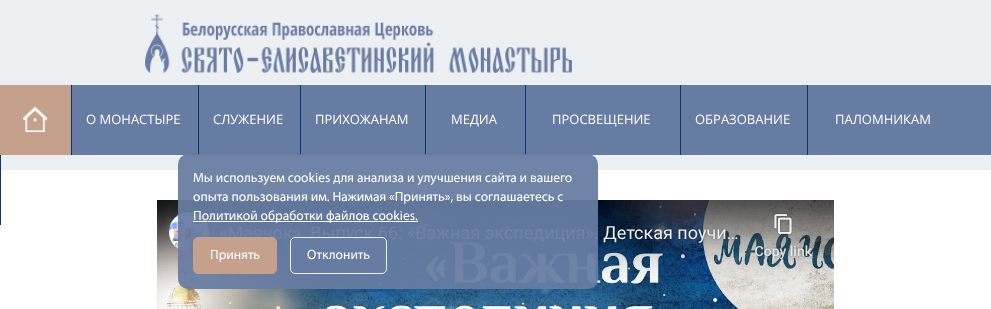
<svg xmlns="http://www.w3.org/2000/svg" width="991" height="309">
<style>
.a{font:13px Open Sans;fill:#fff}
.b{font:13.5px Myriad;fill:#fff}
</style>
<rect width="100%" height="100%" fill="#edf0f3"/>
<image href="1.png" x="145" y="14" width="427" height="59"/>
<path fill="#fff" d="M0 170h991v139H0z"/>
<path fill="#677ca3" d="M72 85h919v70H72z"/>
<path fill="#c5a18c" d="M0 85h71v70H0z"/>
<image href="2.png" x="23" y="106" width="25" height="27"/>
<path fill="#09367a" d="M71 85h1v70H71z"/>
<path fill="#09367a" d="M198 85h1v70H198z"/>
<path fill="#09367a" d="M300 85h1v70H300z"/>
<path fill="#09367a" d="M425 85h1v70H425z"/>
<path fill="#09367a" d="M525 85h1v70H525z"/>
<path fill="#09367a" d="M680 85h1v70H680z"/>
<path fill="#09367a" d="M807 85h1v70H807z"/>
<path fill="#09367a" d="M0 155h1v70H0z"/>
<image href="3.png" x="157" y="200" width="677" height="109"/>
<rect fill="#677ca3f0" x="178" y="154" width="420" height="135" rx="10"/>
<path fill="#fff" d="M193 221h225v1H193z"/>
<rect fill="#c5a18c" stroke="#c5a18c" x="193.5" y="237.5" width="83" height="36" rx="4.5"/>
<rect fill="#677ca3f0" stroke="#edf0f3" x="290.5" y="237.5" width="96" height="36" rx="4.5"/>
<text class="a" x="86" y="124">О МОНАСТЫРЕ</text>
<text class="a" x="213" y="124">CЛУЖЕНИЕ</text>
<text class="a" x="315" y="124">ПРИХОЖАНАМ</text>
<text class="a" x="451" y="124">МЕДИА</text>
<text class="a" x="552" y="124">ПРОСВЕЩЕНИЕ</text>
<text class="a" x="695" y="124">ОБРАЗОВАНИЕ</text>
<text class="a" x="835" y="124">ПАЛОМНИКАМ</text>
<text class="b" x="193" y="182">Мы используем cookies для анализа и улучшения сайта и вашего</text>
<text class="b" x="193" y="201">опыта пользования им. Нажимая «Принять», вы соглашаетесь с</text>
<text class="b" x="193" y="220">Политикой обработки файлов cookies.</text>
<text class="b" x="210" y="259">Принять</text>
<text class="b" x="307" y="259">Отклонить</text>
</svg>
